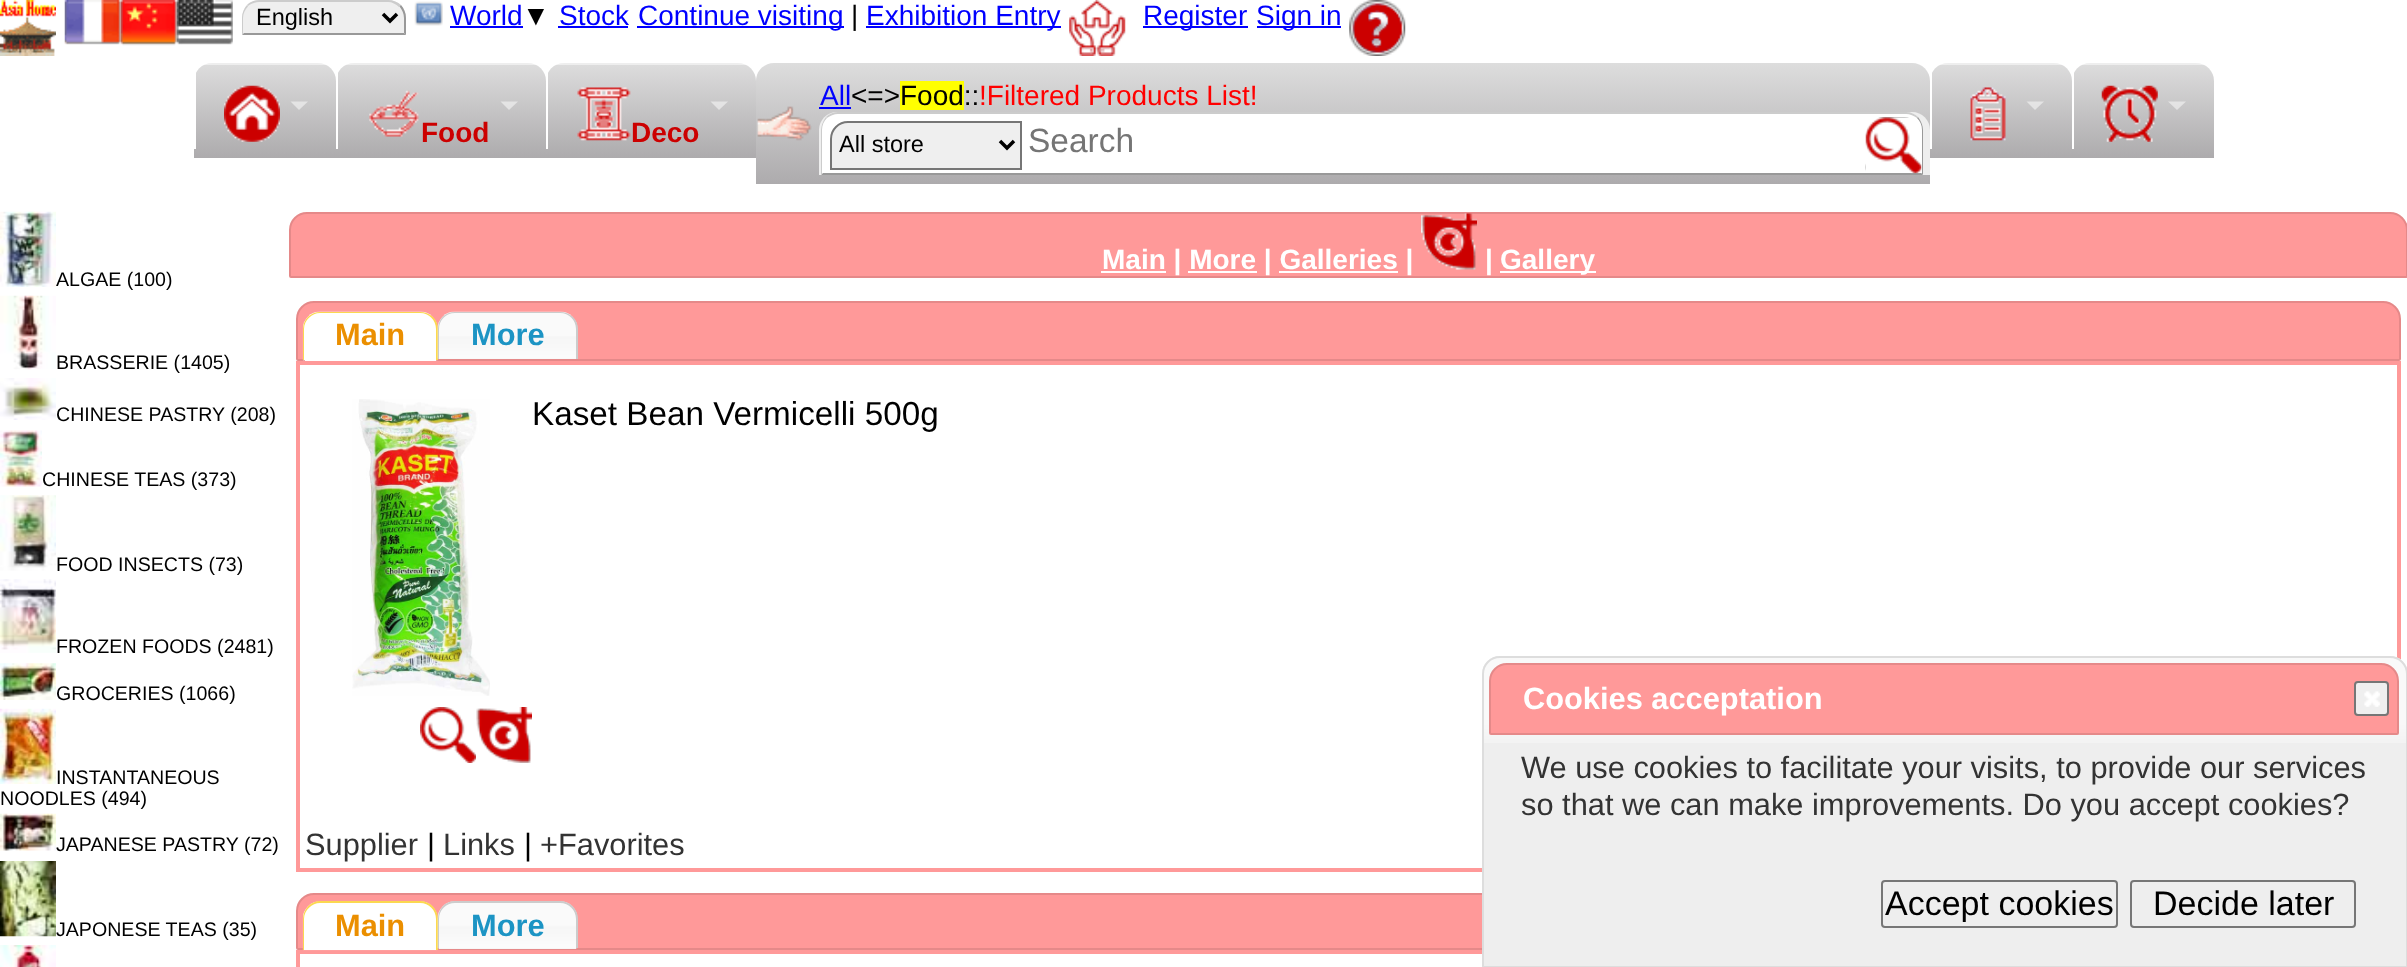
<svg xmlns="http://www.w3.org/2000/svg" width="2407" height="967">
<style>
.a{font:23.5px Liberation Sans;fill:#000}
.b{font:28px Liberation Sans;fill:#00f}
.c{font:28px Liberation Sans;fill:#000}
.d{font:bold 28px Liberation Sans;fill:#c00}
.e{font:28px Liberation Sans;fill:#f00}
.f{font:33.5px Liberation Sans;fill:#757575}
.g{font:19.6px Liberation Sans;fill:#000}
.h{font:bold 28px Liberation Sans;fill:#fff}
.i{font:bold 30.8px Liberation Sans;fill:#eb8f00}
.j{font:bold 30.8px Liberation Sans;fill:#1c94c4}
.k{font:33.25px Liberation Sans;fill:#000}
.l{font:30.8px Liberation Sans;fill:#333}
.m{font:30.8px Liberation Sans;fill:#000}
.n{font:bold 30.8px Liberation Sans;fill:#fff}
.o{font:34px Liberation Sans;fill:#000}
</style>
<defs>
<linearGradient id="g1" gradientUnits="userSpaceOnUse" x1="265" y1="63" x2="265" y2="158"><stop offset="0" stop-color="#ddd"/><stop offset="1" stop-color="#adabad"/></linearGradient>
<linearGradient id="g2" gradientUnits="userSpaceOnUse" x1="441" y1="63" x2="441" y2="158"><stop offset="0" stop-color="#ddd"/><stop offset="1" stop-color="#adabad"/></linearGradient>
<linearGradient id="g3" gradientUnits="userSpaceOnUse" x1="651" y1="63" x2="651" y2="158"><stop offset="0" stop-color="#ddd"/><stop offset="1" stop-color="#adabad"/></linearGradient>
<linearGradient id="g4" gradientUnits="userSpaceOnUse" x1="1343" y1="63" x2="1343" y2="184"><stop offset="0" stop-color="#ddd"/><stop offset="1" stop-color="#adabad"/></linearGradient>
<linearGradient id="g5" gradientUnits="userSpaceOnUse" x1="2001" y1="63" x2="2001" y2="158"><stop offset="0" stop-color="#ddd"/><stop offset="1" stop-color="#adabad"/></linearGradient>
<linearGradient id="g6" gradientUnits="userSpaceOnUse" x1="2143" y1="63" x2="2143" y2="158"><stop offset="0" stop-color="#ddd"/><stop offset="1" stop-color="#adabad"/></linearGradient>
</defs>
<rect width="100%" height="100%" fill="#fff"/>
<image href="1.png" x="0" y="0" width="56" height="56"/>
<image href="2.png" x="64" y="0" width="57" height="45"/>
<image href="3.png" x="120" y="0" width="57" height="46"/>
<image href="4.png" x="176" y="0" width="57" height="45"/>
<path fill="#efefef" d="M259.5 0h129c9.5 0 17.5 8 17.5 17.5v17.5h-164v-17.5c0-9.5 8-17.5 17.5-17.5z"/>
<path fill="#ccc" d="M259 0c-5 0-9 2-12 5l1 1c3-2 7-4 11-4h129c4 0 8 2 11 5l2-2c-3-3-8-5-13-5z"/>
<path fill="#999" d="M406 35v-17c0-5-2-9.5-5-13l-1.5 1.5c2.5 3 4.5 7 4.5 11.5v15z"/>
<path fill="#999" d="M406 35l-2-2h-160l-2 2z"/>
<path fill="#ccc" d="M247 5c-3 3.5-5 8-5 13v16.5l1.5-1.5h-.5v-15c0-4.5 2-8.5 5-11.5z"/>
<path fill="none" stroke="#000" stroke-width="3.5" d="M383 14l7 7l7-7"/>
<image href="5.png" x="414" y="1" width="29" height="25"/>
<path fill="#00f" d="M450 26h73v2H450z"/>
<path fill="#00f" d="M558 26h70v2H558z"/>
<path fill="#00f" d="M637 26h207v2H637z"/>
<path fill="#00f" d="M866 26h195v2H866z"/>
<image href="6.png" x="1069" y="0" width="57" height="56"/>
<path fill="#00f" d="M1143 26h105v2H1143z"/>
<path fill="#00f" d="M1257 26h84v2H1257z"/>
<image href="7.png" x="1349" y="0" width="57" height="56"/>
<path fill="url(#g1)" d="M212 63h106c10 0 18 8 18 18v77h-142v-77c0-10 8-18 18-18z"/>
<path fill="#ffffff80" d="M194 63h142v2h-140z"/>
<path fill="#fff" d="M194 149v-86l2 2v84z"/>
<image href="8.png" x="224" y="85" width="56" height="57"/>
<path fill="#ffffff80" d="M290.5 101.5h17.5l-9 8.5z"/>
<path fill="url(#g2)" d="M354 63h174c10 0 18 8 18 18v77h-210v-77c0-10 8-18 18-18z"/>
<path fill="#ffffff80" d="M336 63h210v2h-208z"/>
<path fill="#fff" d="M336 149v-86l2 2v84z"/>
<image href="9.png" x="369" y="90" width="50" height="47"/>
<path fill="#ffffff80" d="M500.5 101.5h17.5l-9 8.5z"/>
<path fill="url(#g3)" d="M564 63h174c10 0 18 8 18 18v77h-210v-77c0-10 8-18 18-18z"/>
<path fill="#ffffff80" d="M546 63h210v2h-208z"/>
<path fill="#fff" d="M546 149v-86l2 2v84z"/>
<image href="10.png" x="577" y="87" width="54" height="54"/>
<path fill="#ffffff80" d="M710.5 101.5h17.5l-9 8.5z"/>
<path fill="url(#g4)" d="M774 63h1138c10 0 18 8 18 18v103h-1174v-103c0-10 8-18 18-18z"/>
<image href="11.png" x="757" y="106" width="55" height="35"/>
<path fill="#00f" d="M819 107h32v2H819z"/>
<path fill="#ff0" d="M900 81h64v29H900z"/>
<path fill="#eee" d="M837 112h1075c10 0 18 8 18 18v45h-1111v-45c0-10 8-18 18-18z"/>
<path fill="#fff" d="M839 112h1066c10 0 18 8 18 18v45h-1102v-45c0-10 8-18 18-18z"/>
<path fill="#ccc" d="M838 112c-5 0-9 2-12 5l1 1c3-2 7-4 11-4h1068c4 0 8 2 11 4l1-1c-3-3-7-5-12-5z"/>
<path fill="#999" d="M1918 117c3 4 5 8 5 13v45l-2-2h1v-43c0-5-2-9-5-12z"/>
<path fill="#999" d="M821 175h1102l-2-2h-1098z"/>
<path fill="#ccc" d="M826 117c-3 4-5 8-5 13v45l2-2h-1v-43c0-5 2-9 5-12z"/>
<path fill="#efefef" stroke="#767676" stroke-width="2" d="M848 122h173v47h-190v-30c0-9.5 7.5-17 17-17z"/>
<path fill="none" stroke="#000" stroke-width="3.5" d="M1000 141l7 7l7-7"/>
<image href="12.png" x="1865" y="117" width="57" height="57"/>
<path fill="url(#g5)" d="M1948 63h106c10 0 18 8 18 18v77h-142v-77c0-10 8-18 18-18z"/>
<path fill="#ffffff80" d="M1930 63h142v2h-140z"/>
<path fill="#fff" d="M1930 149v-86l2 2v84z"/>
<image href="13.png" x="1970" y="87" width="36" height="54"/>
<path fill="#ffffff80" d="M2026.5 101.5h17.5l-9 8.5z"/>
<path fill="url(#g6)" d="M2090 63h106c10 0 18 8 18 18v77h-142v-77c0-10 8-18 18-18z"/>
<path fill="#ffffff80" d="M2072 63h142v2h-140z"/>
<path fill="#fff" d="M2072 149v-86l2 2v84z"/>
<image href="14.png" x="2101" y="85" width="57" height="57"/>
<path fill="#ffffff80" d="M2168 101.5h18l-9 8.5z"/>
<image href="15.png" x="0" y="211" width="56" height="76"/>
<image href="16.png" x="0" y="295" width="56" height="75"/>
<image href="17.png" x="0" y="378" width="56" height="42"/>
<image href="18.png" x="0" y="430" width="42" height="57"/>
<image href="19.png" x="0" y="495" width="56" height="76"/>
<image href="20.png" x="0" y="579" width="56" height="74"/>
<image href="21.png" x="0" y="663" width="56" height="37"/>
<image href="22.png" x="0" y="708" width="56" height="76"/>
<image href="23.png" x="0" y="813" width="56" height="38"/>
<image href="24.png" x="0" y="861" width="56" height="76"/>
<image href="25.png" x="0" y="945" width="56" height="22"/>
<path fill="#f99" stroke="#e58989" stroke-width="2" d="M307 213h2083c9.5 0 17 7.5 17 17v46c0 .5-.5 1-1 1h-2115c-.5 0-1-.5-1-1v-46c0-9.5 7.5-17 17-17z"/>
<path fill="#fff" d="M1101 271h65v2H1101z"/>
<image href="26.png" x="1421" y="213" width="56" height="57"/>
<path fill="#fff" d="M1500 271h96v2H1500z"/>
<path fill="#fff" d="M1188 271h69v2H1188z"/>
<path fill="#fff" d="M1279 271h119v2H1279z"/>
<path fill="#f99" stroke="#e58989" stroke-width="2" d="M314 302h2069c9.5 0 17 7.5 17 17v40c0 .5-.5 1-1 1h-2101c-.5 0-1-.5-1-1v-40c0-9.5 7.5-17 17-17z"/>
<path fill="#fff" d="M321 313h99c9 0 16 7 16 16v32h-131v-32c0-9 7-16 16-16z"/>
<image href="27.png" x="302" y="311" width="136" height="50"/>
<path fill="#fbd850" fill-rule="evenodd" d="M320 312h100c10 0 18 7 18 17v31h-135v-31c0-10 8-17 17-17zm0 1h100c9 0 16 7 16 16v31h-132v-31c0-9 8-16 16-16z"/>
<path fill="#f6f6f6" d="M455 313h105c9 0 16 7 16 16v30h-137v-30c0-9 7-16 16-16z"/>
<image href="28.png" x="437" y="311" width="141" height="48"/>
<path fill="#ccc" fill-rule="evenodd" d="M455 312h105c10 0 18 7 18 17v30h-140v-30c0-10 7-17 17-17zm0 1h105c9 0 16 7 16 16v30h-137v-30c0-9 7-16 16-16z"/>
<path fill="none" stroke="#f99" stroke-width="4" d="M298 363h2101v507H298z"/>
<image href="29.png" x="352" y="399" width="138" height="297"/>
<image href="30.png" x="420" y="707" width="56" height="56"/>
<image href="31.png" x="476" y="707" width="56" height="56"/>
<path fill="#f99" stroke="#e58989" stroke-width="2" d="M314 894h2069c9.5 0 17 7.5 17 17v37c0 .5-.5 1-1 1h-2101c-.5 0-1-.5-1-1v-37c0-9.5 7.5-17 17-17z"/>
<path fill="none" stroke="#f99" stroke-width="4" d="M298 952h2101v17H298z"/>
<image href="32.png" x="302" y="901" width="136" height="50"/>
<path fill="#fbd850" fill-rule="evenodd" d="M320 901h100c10 0 18 8 18 18v31h-135v-31c0-10 8-18 17-18zm0 2h100c9 0 16 7 16 16v31h-132v-31c0-9 8-16 16-16z"/>
<path fill="#f6f6f6" d="M455 903h105c9 0 16 7 16 16v30h-137v-30c0-9 7-16 16-16z"/>
<image href="33.png" x="437" y="901" width="141" height="48"/>
<path fill="#ccc" fill-rule="evenodd" d="M455 901h105c10 0 18 8 18 18v29h-140v-29c0-10 7-18 17-18zm0 2h105c9 0 16 7 16 16v29h-137v-29c0-9 7-16 16-16z"/>
<path fill="#eee" d="M1500 656h890c10 0 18 8 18 18v292c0 1-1 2-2 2h-922c-1 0-2-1-2-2v-292c0-10 8-18 18-18z"/>
<image href="34.png" x="1482" y="658" width="925" height="85"/>
<path fill="none" stroke="#ddd" stroke-width="2" d="M1500 657h890c9.5 0 17 7.5 17 17v292c0 .5-.5 1-1 1h-922c-.5 0-1-.5-1-1v-292c0-9.5 7.5-17 17-17z"/>
<path fill="#f99" stroke="#e58989" stroke-width="2" d="M1507 664h874c9.5 0 17 7.5 17 17v52c0 .5-.5 1-1 1h-906c-.5 0-1-.5-1-1v-52c0-9.5 7.5-17 17-17z"/>
<rect fill="#efefef" stroke="#767676" stroke-width="2" x="2355" y="682" width="33" height="33" rx="3"/>
<image href="35.png" x="2364" y="691" width="16" height="16"/>
<rect fill="none" stroke="#767676" stroke-width="2" x="1882" y="881" width="235" height="46" rx="3"/>
<rect fill="none" stroke="#767676" stroke-width="2" x="2131" y="881" width="224" height="46" rx="3"/>
<text class="a" x="256" y="25">English</text>
<text class="b" x="450" y="25">World</text>
<text class="c" x="522" y="25">▼</text>
<text class="b" x="559" y="25">Stock</text>
<text class="b" x="638" y="25">Continue visiting</text>
<text class="c" x="851" y="25">|</text>
<text class="b" x="866" y="25">Exhibition Entry</text>
<text class="b" x="1143" y="25">Register</text>
<text class="b" x="1256" y="25">Sign in</text>
<text class="d" x="421" y="142">Food</text>
<text class="d" x="631" y="142">Deco</text>
<text class="b" x="820" y="105">All</text>
<text class="c" x="851" y="105">&lt;=&gt;</text>
<text class="c" x="900" y="105">Food::</text>
<text class="e" x="979" y="105">!Filtered Products List!</text>
<text class="a" x="839" y="152">All store</text>
<text class="f" x="1028" y="152">Search</text>
<text class="g" x="56" y="286">ALGAE (100)</text>
<text class="g" x="56" y="369">BRASSERIE (1405)</text>
<text class="g" x="56" y="421">CHINESE PASTRY (208)</text>
<text class="g" x="42" y="486">CHINESE TEAS (373)</text>
<text class="g" x="56" y="571">FOOD INSECTS (73)</text>
<text class="g" x="56" y="653">FROZEN FOODS (2481)</text>
<text class="g" x="56" y="700">GROCERIES (1066)</text>
<text class="g" x="56" y="784">INSTANTANEOUS</text>
<text class="g" x="0" y="805">NOODLES (494)</text>
<text class="g" x="56" y="851">JAPANESE PASTRY (72)</text>
<text class="g" x="56" y="936">JAPONESE TEAS (35)</text>
<text class="h" x="1102" y="269">Main | More | Galleries |</text>
<text class="h" x="1485" y="269">|</text>
<text class="h" x="1500" y="269">Gallery</text>
<text class="i" x="335" y="345">Main</text>
<text class="j" x="471" y="345">More</text>
<text class="k" x="532" y="425">Kaset Bean Vermicelli 500g</text>
<text class="l" x="305" y="855">Supplier</text>
<text class="m" x="427" y="855">|</text>
<text class="l" x="443" y="855">Links</text>
<text class="m" x="524" y="855">|</text>
<text class="l" x="540" y="855">+Favorites</text>
<text class="i" x="335" y="936">Main</text>
<text class="j" x="471" y="936">More</text>
<text class="n" x="1523" y="709">Cookies acceptation</text>
<text class="l" x="1521" y="778">We use cookies to facilitate your visits, to provide our services</text>
<text class="l" x="1521" y="815">so that we can make improvements. Do you accept cookies?</text>
<text class="o" x="1885" y="915">Accept cookies</text>
<text class="o" x="2153" y="915">Decide later</text>
</svg>
